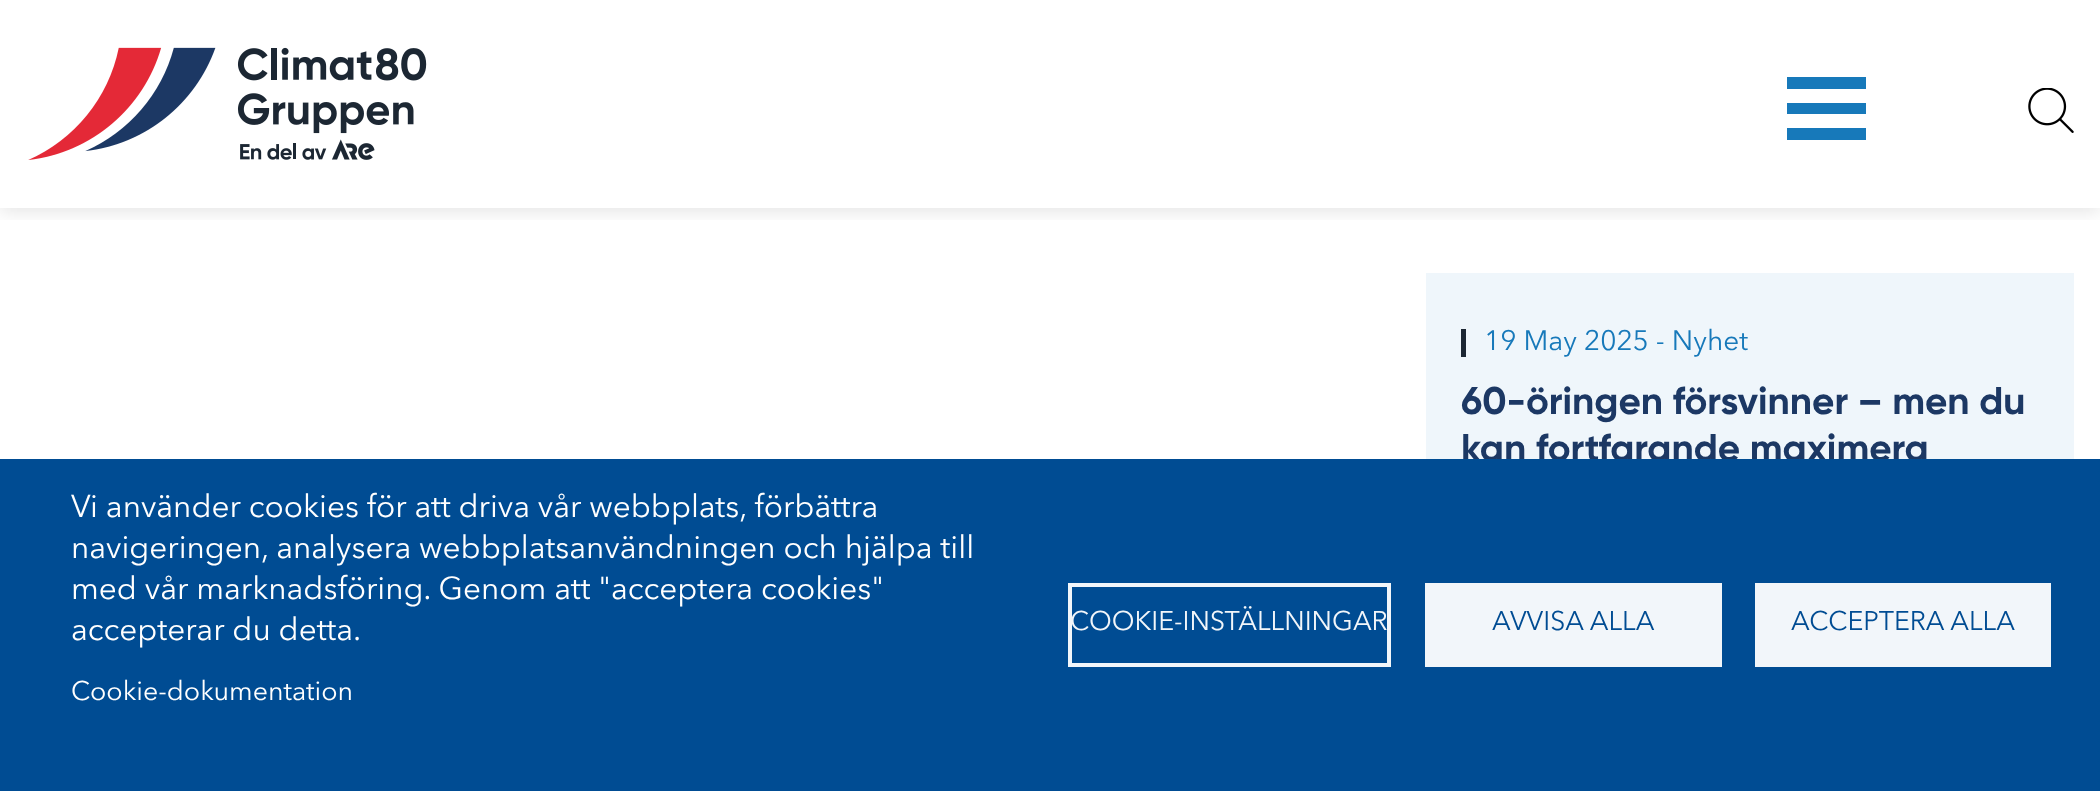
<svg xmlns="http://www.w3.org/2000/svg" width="2100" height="791">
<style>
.a{font:28px Avenir Next;fill:#1779ba}
.b{font:bold 38.5px Gilroy;fill:#1c3864}
.c{font:31.5px Avenir Next;fill:#fff}
.d{font:26.75px Avenir Next;fill:#fff}
.e{font:26.75px Avenir Next;fill:#f2f6fa}
.f{font:26.75px Avenir Next;fill:#004c93}
</style>
<defs>
<clipPath id="clip1"><path d="M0 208h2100v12H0z"/></clipPath>
</defs>
<rect width="100%" height="100%" fill="#fff"/>
<g clip-path="url(#clip1)">
<path fill="#0000001a" filter="blur(9px)" d="M0 4h2100v208H0z"/>
</g>
<image href="1.png" x="28" y="47" width="399" height="113"/>
<path fill="#1779ba" d="M1787 77h79v12H1787z"/>
<path fill="#1779ba" d="M1787 103h79v11H1787z"/>
<path fill="#1779ba" d="M1787 128h79v12H1787z"/>
<image href="2.png" x="2028" y="88" width="46" height="45"/>
<path fill="#eff6fb" d="M1426 273h648v186H1426z"/>
<path fill="#1c2733" d="M1461 329h5v28H1461z"/>
<text class="a" x="1484" y="350">19 May 2025 - Nyhet</text>
<text class="b" x="1461" y="414">60-öringen försvinner – men du</text>
<text class="b" x="1461" y="461">kan fortfarande maximera</text>
<path fill="#004c93" d="M0 459h2100v332H0z"/>
<text class="c" x="71" y="517">Vi använder cookies för att driva vår webbplats, förbättra</text>
<text class="c" x="71" y="558">navigeringen, analysera webbplatsanvändningen och hjälpa till</text>
<text class="c" x="71" y="599">med vår marknadsföring. Genom att "acceptera cookies"</text>
<text class="c" x="71" y="640">accepterar du detta.</text>
<text class="d" x="71" y="700">Cookie-dokumentation</text>
<path fill="none" stroke="#f2f6fa" stroke-width="4" d="M1070 585h319v80H1070z"/>
<text class="e" x="1070" y="630">COOKIE-INSTÄLLNINGAR</text>
<path fill="#f2f6fa" d="M1425 583h297v84H1425z"/>
<text class="f" x="1492" y="630">AVVISA ALLA</text>
<path fill="#f2f6fa" d="M1755 583h296v84H1755z"/>
<text class="f" x="1791" y="630">ACCEPTERA ALLA</text>
</svg>
